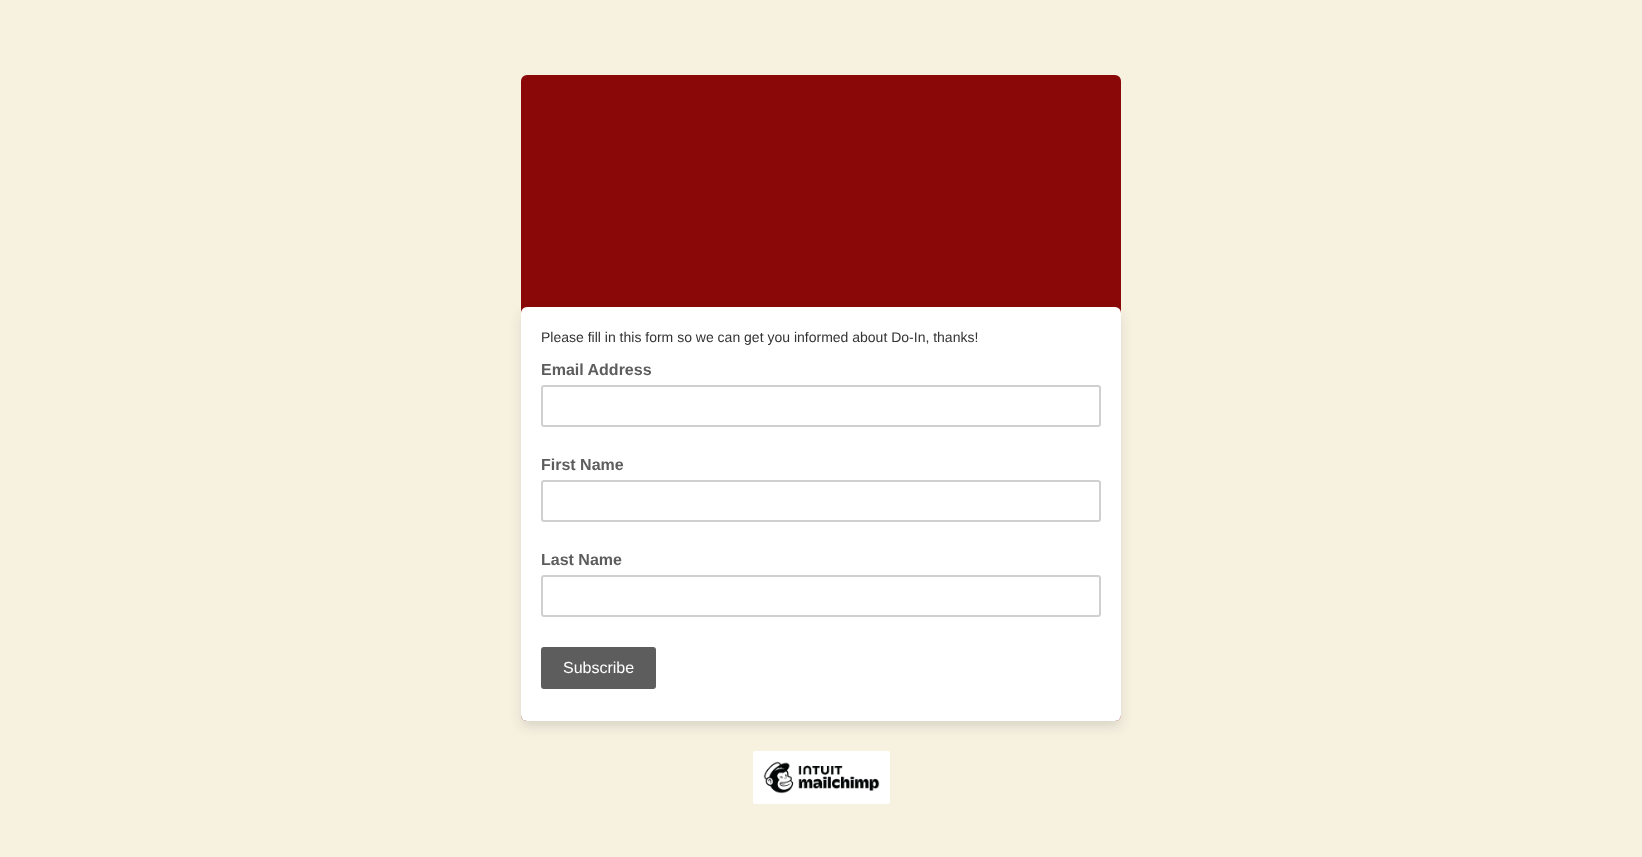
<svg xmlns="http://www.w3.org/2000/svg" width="1642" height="857">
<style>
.a{font:14px Liberation Sans;fill:#333}
.b{font:bold 16px Liberation Sans;fill:#5d5d5d}
.c{font:16px Liberation Sans;fill:#fff}
</style>
<rect width="100%" height="100%" fill="#f7f2e0"/>
<rect fill="#8a0808" x="521" y="75" width="600" height="646" rx="6"/>
<rect fill="#0d12161f" filter="blur(6px)" x="521" y="313" width="600" height="414" rx="6"/>
<rect fill="#fff" x="521" y="307" width="600" height="414" rx="6"/>
<rect fill="none" stroke="#d0d0d0" stroke-width="2" x="542" y="386" width="558" height="40" rx="2"/>
<rect fill="none" stroke="#d0d0d0" stroke-width="2" x="542" y="481" width="558" height="40" rx="2"/>
<rect fill="none" stroke="#d0d0d0" stroke-width="2" x="542" y="576" width="558" height="40" rx="2"/>
<rect fill="#5d5d5d" x="541" y="647" width="115" height="42" rx="3"/>
<image href="1.png" x="753" y="751" width="137" height="53"/>
<text class="a" x="541" y="342">Please fill in this form so we can get you informed about Do-In, thanks!</text>
<text class="b" x="541" y="375">Email Address</text>
<text class="b" x="541" y="470">First Name</text>
<text class="b" x="541" y="565">Last Name</text>
<text class="c" x="563" y="673">Subscribe</text>
</svg>
